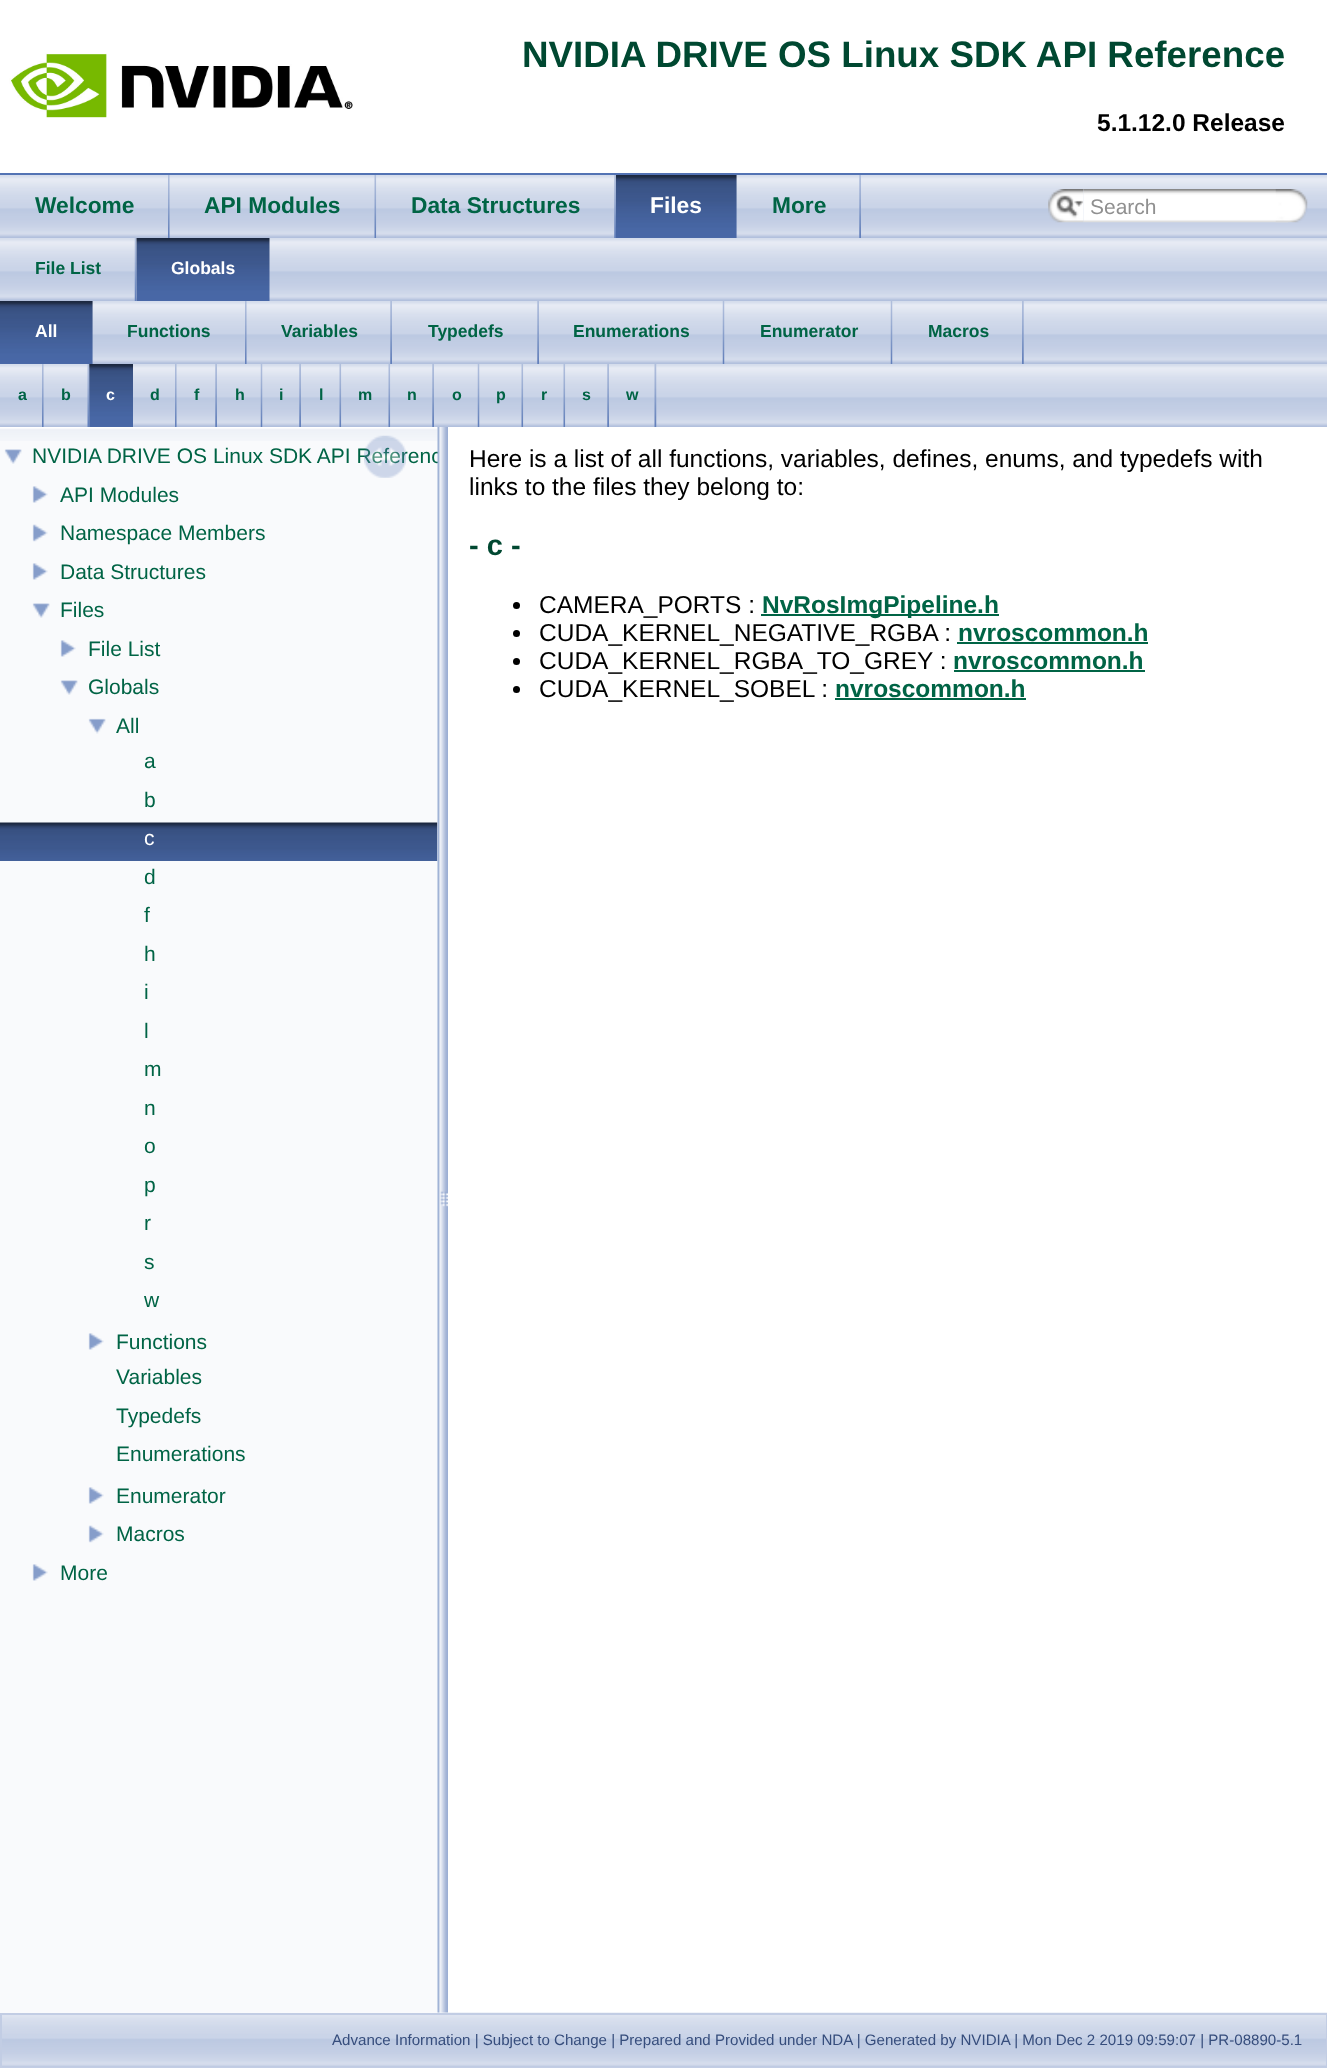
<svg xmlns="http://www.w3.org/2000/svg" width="1327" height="2068">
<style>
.a{font:bold 36.75px Liberation Sans;fill:#004831}
.b{font:bold 24.5px Liberation Sans;fill:#000}
.c{font:bold 22.75px Liberation Sans;fill:#006445}
.d{font:bold 22.75px Liberation Sans;fill:#fff}
.e{font:21px Liberation Sans;fill:#909090}
.f{font:bold 17.5px Liberation Sans;fill:#006445}
.g{font:bold 17.5px Liberation Sans;fill:#fff}
.h{font:bold 16px Liberation Sans;fill:#006445}
.i{font:bold 16px Liberation Sans;fill:#fff}
.j{font:21px Liberation Sans;fill:#006445}
.k{font:21px Liberation Sans;fill:#fff}
.l{font:24.5px Liberation Sans;fill:#000}
.m{font:bold 29px Liberation Sans;fill:#004831}
.n{font:bold 24.5px Liberation Sans;fill:#006445}
.o{font:15.1px Liberation Sans;fill:#364d7c}
</style>
<rect width="100%" height="100%" fill="#fff"/>
<path fill="#5373b4" d="M0 173h1327v2H0z"/>
<image href="1.png" x="9" y="53" width="344" height="65"/>
<image href="2.png" x="0" y="175" width="1327" height="63"/>
<image href="3.png" x="168" y="175" width="2" height="63"/>
<image href="4.png" x="169" y="175" width="1" height="63"/>
<image href="5.png" x="374" y="175" width="3" height="63"/>
<image href="6.png" x="376" y="175" width="1" height="63"/>
<image href="7.png" x="614" y="175" width="2" height="63"/>
<image href="8.png" x="616" y="175" width="121" height="63"/>
<image href="9.png" x="736" y="175" width="1" height="63"/>
<image href="7.png" x="859" y="175" width="2" height="63"/>
<image href="10.png" x="1048" y="189" width="36" height="34"/>
<image href="11.png" x="1056" y="195" width="28" height="23"/>
<image href="12.png" x="1083" y="189" width="205" height="34"/>
<image href="13.png" x="1275" y="189" width="33" height="34"/>
<image href="14.png" x="0" y="238" width="1327" height="63"/>
<image href="15.png" x="134" y="238" width="3" height="63"/>
<image href="16.png" x="136" y="238" width="1" height="63"/>
<image href="17.png" x="136" y="238" width="134" height="63"/>
<image href="18.png" x="92" y="301" width="1235" height="63"/>
<image href="19.png" x="0" y="301" width="93" height="63"/>
<image href="20.png" x="92" y="301" width="1" height="63"/>
<image href="3.png" x="245" y="301" width="2" height="63"/>
<image href="21.png" x="246" y="301" width="1" height="63"/>
<image href="7.png" x="390" y="301" width="2" height="63"/>
<image href="7.png" x="537" y="301" width="2" height="63"/>
<image href="15.png" x="722" y="301" width="3" height="63"/>
<image href="16.png" x="724" y="301" width="1" height="63"/>
<image href="15.png" x="890" y="301" width="3" height="63"/>
<image href="16.png" x="892" y="301" width="1" height="63"/>
<image href="3.png" x="1022" y="301" width="2" height="63"/>
<image href="14.png" x="0" y="364" width="1327" height="63"/>
<image href="3.png" x="42" y="364" width="2" height="63"/>
<image href="21.png" x="43" y="364" width="1" height="63"/>
<image href="22.png" x="87" y="364" width="3" height="63"/>
<image href="23.png" x="89" y="364" width="1" height="63"/>
<image href="24.png" x="89" y="364" width="44" height="63"/>
<image href="3.png" x="175" y="364" width="2" height="63"/>
<image href="21.png" x="176" y="364" width="1" height="63"/>
<image href="7.png" x="215" y="364" width="2" height="63"/>
<image href="15.png" x="260" y="364" width="3" height="63"/>
<image href="16.png" x="262" y="364" width="1" height="63"/>
<image href="7.png" x="299" y="364" width="2" height="63"/>
<image href="22.png" x="339" y="364" width="3" height="63"/>
<image href="23.png" x="341" y="364" width="1" height="63"/>
<image href="22.png" x="388" y="364" width="3" height="63"/>
<image href="23.png" x="390" y="364" width="1" height="63"/>
<image href="7.png" x="432" y="364" width="2" height="63"/>
<image href="15.png" x="477" y="364" width="3" height="63"/>
<image href="16.png" x="479" y="364" width="1" height="63"/>
<image href="22.png" x="521" y="364" width="3" height="63"/>
<image href="23.png" x="523" y="364" width="1" height="63"/>
<image href="22.png" x="563" y="364" width="3" height="63"/>
<image href="23.png" x="565" y="364" width="1" height="63"/>
<image href="7.png" x="607" y="364" width="2" height="63"/>
<image href="22.png" x="654" y="364" width="3" height="63"/>
<image href="35.png" x="2" y="2012" width="1325" height="55"/>
<path fill="#f9fafc" d="M0 427h438v1586H0z"/>
<image href="25.png" x="0" y="427" width="438" height="14"/>
<image href="27.png" x="4" y="449" width="18" height="15"/>
<image href="28.png" x="32" y="486" width="16" height="17"/>
<image href="29.png" x="32" y="524" width="16" height="18"/>
<image href="28.png" x="32" y="563" width="16" height="17"/>
<image href="27.png" x="32" y="603" width="18" height="15"/>
<image href="28.png" x="60" y="640" width="16" height="17"/>
<image href="27.png" x="60" y="680" width="18" height="15"/>
<image href="30.png" x="88" y="718" width="18" height="16"/>
<image href="31.png" x="0" y="822" width="438" height="39"/>
<image href="32.png" x="88" y="1333" width="16" height="17"/>
<image href="32.png" x="88" y="1487" width="16" height="17"/>
<image href="33.png" x="88" y="1525" width="16" height="18"/>
<image href="28.png" x="32" y="1564" width="16" height="17"/>
<circle fill="#000" cx="516.5" cy="605.5" r="3.5"/>
<path fill="#006445" d="M761 614h238v2H761z"/>
<circle fill="#000" cx="516.5" cy="633.5" r="3.5"/>
<path fill="#006445" d="M957 642h191v2H957z"/>
<circle fill="#000" cx="516.5" cy="661.5" r="3.5"/>
<path fill="#006445" d="M954 670h191v2H954z"/>
<circle fill="#000" cx="516.5" cy="689.5" r="3.5"/>
<path fill="#006445" d="M835 698h191v2H835z"/>
<path fill="none" stroke="#c2cde4" stroke-width="2" d="M1 2014h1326v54H1z"/>
<text class="a" x="522" y="67">NVIDIA DRIVE OS Linux SDK API Reference</text>
<text class="b" x="1097" y="131">5.1.12.0 Release</text>
<text class="c" x="35" y="213">Welcome</text>
<text class="c" x="204" y="213">API Modules</text>
<text class="c" x="411" y="213">Data Structures</text>
<text class="d" x="650" y="213">Files</text>
<text class="c" x="772" y="213">More</text>
<text class="e" x="1090" y="214">Search</text>
<text class="f" x="35" y="274">File List</text>
<text class="g" x="171" y="274">Globals</text>
<text class="g" x="35" y="337">All</text>
<text class="f" x="127" y="337">Functions</text>
<text class="f" x="281" y="337">Variables</text>
<text class="f" x="428" y="337">Typedefs</text>
<text class="f" x="573" y="337">Enumerations</text>
<text class="f" x="760" y="337">Enumerator</text>
<text class="f" x="928" y="337">Macros</text>
<text class="h" x="18" y="400">a</text>
<text class="h" x="61" y="400">b</text>
<text class="i" x="106" y="400">c</text>
<text class="h" x="150" y="400">d</text>
<text class="h" x="194" y="400">f</text>
<text class="h" x="235" y="400">h</text>
<text class="h" x="279" y="400">i</text>
<text class="h" x="319" y="400">l</text>
<text class="h" x="358" y="400">m</text>
<text class="h" x="407" y="400">n</text>
<text class="h" x="452" y="400">o</text>
<text class="h" x="496" y="400">p</text>
<text class="h" x="541" y="400">r</text>
<text class="h" x="582" y="400">s</text>
<text class="h" x="626" y="400">w</text>
<text class="j" x="32" y="463">NVIDIA DRIVE OS Linux SDK API Referenc</text>
<image href="26.png" x="364" y="435" width="42" height="43"/>
<text class="j" x="60" y="502">API Modules</text>
<text class="j" x="60" y="540">Namespace Members</text>
<text class="j" x="60" y="579">Data Structures</text>
<text class="j" x="60" y="617">Files</text>
<text class="j" x="88" y="656">File List</text>
<text class="j" x="88" y="694">Globals</text>
<text class="j" x="116" y="733">All</text>
<text class="j" x="144" y="768">a</text>
<text class="j" x="144" y="807">b</text>
<text class="k" x="144" y="845">c</text>
<text class="j" x="144" y="884">d</text>
<text class="j" x="144" y="922">f</text>
<text class="j" x="144" y="961">h</text>
<text class="j" x="144" y="999">i</text>
<text class="j" x="144" y="1038">l</text>
<text class="j" x="144" y="1076">m</text>
<text class="j" x="144" y="1115">n</text>
<text class="j" x="144" y="1153">o</text>
<text class="j" x="144" y="1192">p</text>
<text class="j" x="144" y="1230">r</text>
<text class="j" x="144" y="1269">s</text>
<text class="j" x="144" y="1307">w</text>
<text class="j" x="116" y="1349">Functions</text>
<text class="j" x="116" y="1384">Variables</text>
<text class="j" x="116" y="1423">Typedefs</text>
<text class="j" x="116" y="1461">Enumerations</text>
<text class="j" x="116" y="1503">Enumerator</text>
<text class="j" x="116" y="1541">Macros</text>
<text class="j" x="60" y="1580">More</text>
<image href="34.png" x="437" y="427" width="11" height="1586"/>
<text class="l" x="469" y="467">Here is a list of all functions, variables, defines, enums, and typedefs with</text>
<text class="l" x="469" y="495">links to the files they belong to:</text>
<text class="m" x="469" y="555">- c -</text>
<text class="l" x="539" y="613">CAMERA_PORTS :</text>
<text class="n" x="762" y="613">NvRosImgPipeline.h</text>
<text class="l" x="539" y="641">CUDA_KERNEL_NEGATIVE_RGBA :</text>
<text class="n" x="958" y="641">nvroscommon.h</text>
<text class="l" x="539" y="669">CUDA_KERNEL_RGBA_TO_GREY :</text>
<text class="n" x="953" y="669">nvroscommon.h</text>
<text class="l" x="539" y="697">CUDA_KERNEL_SOBEL :</text>
<text class="n" x="835" y="697">nvroscommon.h</text>
<text class="o" x="332" y="2045">Advance Information | Subject to Change | Prepared and Provided under NDA | Generated by NVIDIA | Mon Dec 2 2019 09:59:07 | PR-08890-5.1</text>
</svg>
